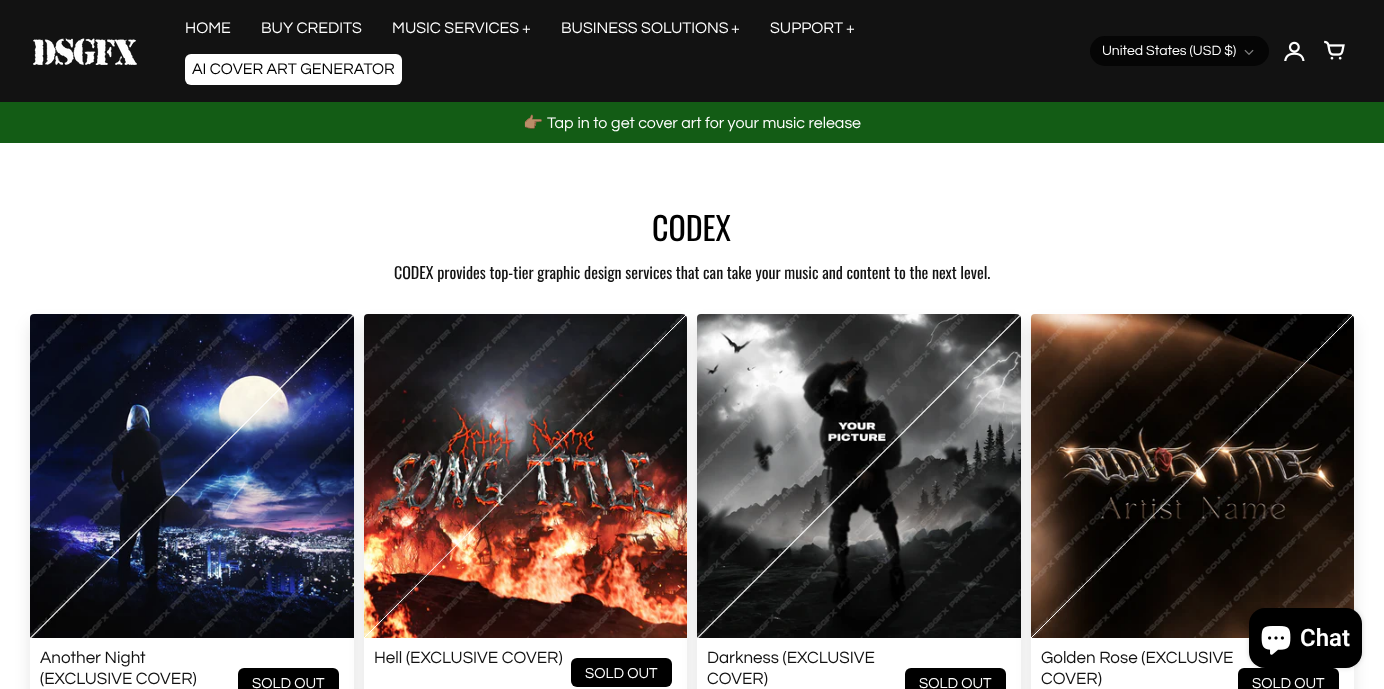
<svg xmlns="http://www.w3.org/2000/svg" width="1384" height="689">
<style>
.a{font:16px Questrial;fill:#fff}
.b{font:16px Questrial;fill:#000}
.c{font:14px Questrial;fill:#fff}
.d{font:16px Noto Color Emoji;fill:#fff}
.e{font:32px Oswald;fill:#000}
.f{font:16px Oswald;fill:#121212}
.g{font:17px Questrial;fill:#121212}
.h{font:15px Questrial;fill:#fff}
.i{font:600 24px Roboto;fill:#fff}
</style>
<defs>
<clipPath id="clip1"><path d="M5 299h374v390h-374zm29 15h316c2 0 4 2 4 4v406c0 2-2 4-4 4h-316c-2 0-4-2-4-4v-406c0-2 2-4 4-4z" clip-rule="evenodd"/></clipPath>
</defs>
<rect width="100%" height="100%" fill="#fff"/>
<path fill="#121212" d="M0 0h1384v102H0z"/>
<image href="1.png" x="33" y="38" width="104" height="28"/>
<rect fill="#fff" x="185" y="54" width="217" height="31" rx="6"/>
<rect fill="#050505" x="1090" y="36" width="179" height="30" rx="15"/>
<image href="2.png" x="1244" y="49" width="10" height="6"/>
<image href="3.png" x="1284" y="41" width="21" height="20"/>
<image href="4.png" x="1324" y="40" width="21" height="20"/>
<path fill="#135c15" d="M0 102h1384v41H0z"/>
<g clip-path="url(#clip1)">
<rect fill="#0000001a" filter="blur(8px)" x="30" y="324" width="324" height="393" rx="4"/>
</g>
<image href="5.png" x="30" y="314" width="324" height="324"/>
<rect fill="#0000001a" filter="blur(8px)" x="364" y="324" width="323" height="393" rx="4"/>
<image href="6.png" x="30" y="315" width="323" height="323"/>
<rect fill="#000" x="238" y="668" width="101" height="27" rx="6"/>
<image href="7.png" x="364" y="314" width="323" height="324"/>
<path fill="#fff" d="M364 638h323v51H364z"/>
<rect fill="#0000001a" filter="blur(8px)" x="697" y="324" width="324" height="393" rx="4"/>
<image href="8.png" x="364" y="315" width="322" height="323"/>
<rect fill="#000" x="571" y="658" width="101" height="29" rx="6"/>
<image href="9.png" x="697" y="314" width="324" height="324"/>
<path fill="#fff" d="M697 638h324v51H697z"/>
<rect fill="#0000001a" filter="blur(8px)" x="1031" y="324" width="323" height="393" rx="4"/>
<image href="10.png" x="697" y="315" width="323" height="323"/>
<rect fill="#000" x="905" y="668" width="101" height="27" rx="6"/>
<image href="11.png" x="1031" y="314" width="323" height="324"/>
<image href="12.png" x="1031" y="315" width="322" height="323"/>
<path fill="#fff" d="M1031 638h323v51H1031z"/>
<rect fill="#000" x="1238" y="668" width="101" height="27" rx="6"/>
<rect fill="#00000026" filter="blur(2.5px)" x="1249" y="608" width="113" height="60" rx="16"/>
<rect fill="#000" x="1249" y="608" width="113" height="60" rx="16"/>
<image href="13.png" x="1261" y="626" width="30" height="29"/>
<text class="a" x="185" y="33">HOME</text>
<text class="a" x="261" y="33">BUY CREDITS</text>
<text class="a" x="392" y="33">MUSIC SERVICES</text>
<text class="a" x="522" y="33">+</text>
<text class="a" x="561" y="33">BUSINESS SOLUTIONS</text>
<text class="a" x="731" y="33">+</text>
<text class="a" x="770" y="33">SUPPORT</text>
<text class="a" x="846" y="33">+</text>
<text class="b" x="192" y="74">AI COVER ART GENERATOR</text>
<text class="c" x="1102" y="55">United States (USD $)</text>
<text class="d" x="523" y="128">👉🏽</text>
<text class="a" x="547" y="128">Tap in to get cover art for your music release</text>
<text class="e" x="652" y="241">CODEX</text>
<text class="f" x="394" y="279">CODEX provides top-tier graphic design services that can take your music and content to the next level.</text>
<text class="g" x="40" y="663">Another Night</text>
<text class="g" x="40" y="684">(EXCLUSIVE COVER)</text>
<text class="h" x="252" y="688">SOLD OUT</text>
<text class="g" x="374" y="663">Hell (EXCLUSIVE COVER)</text>
<text class="h" x="585" y="678">SOLD OUT</text>
<text class="g" x="707" y="663">Darkness (EXCLUSIVE</text>
<text class="g" x="707" y="684">COVER)</text>
<text class="h" x="919" y="688">SOLD OUT</text>
<text class="g" x="1041" y="663">Golden Rose (EXCLUSIVE</text>
<text class="g" x="1041" y="684">COVER)</text>
<text class="h" x="1252" y="688">SOLD OUT</text>
<text class="i" x="1300" y="646">Chat</text>
</svg>
